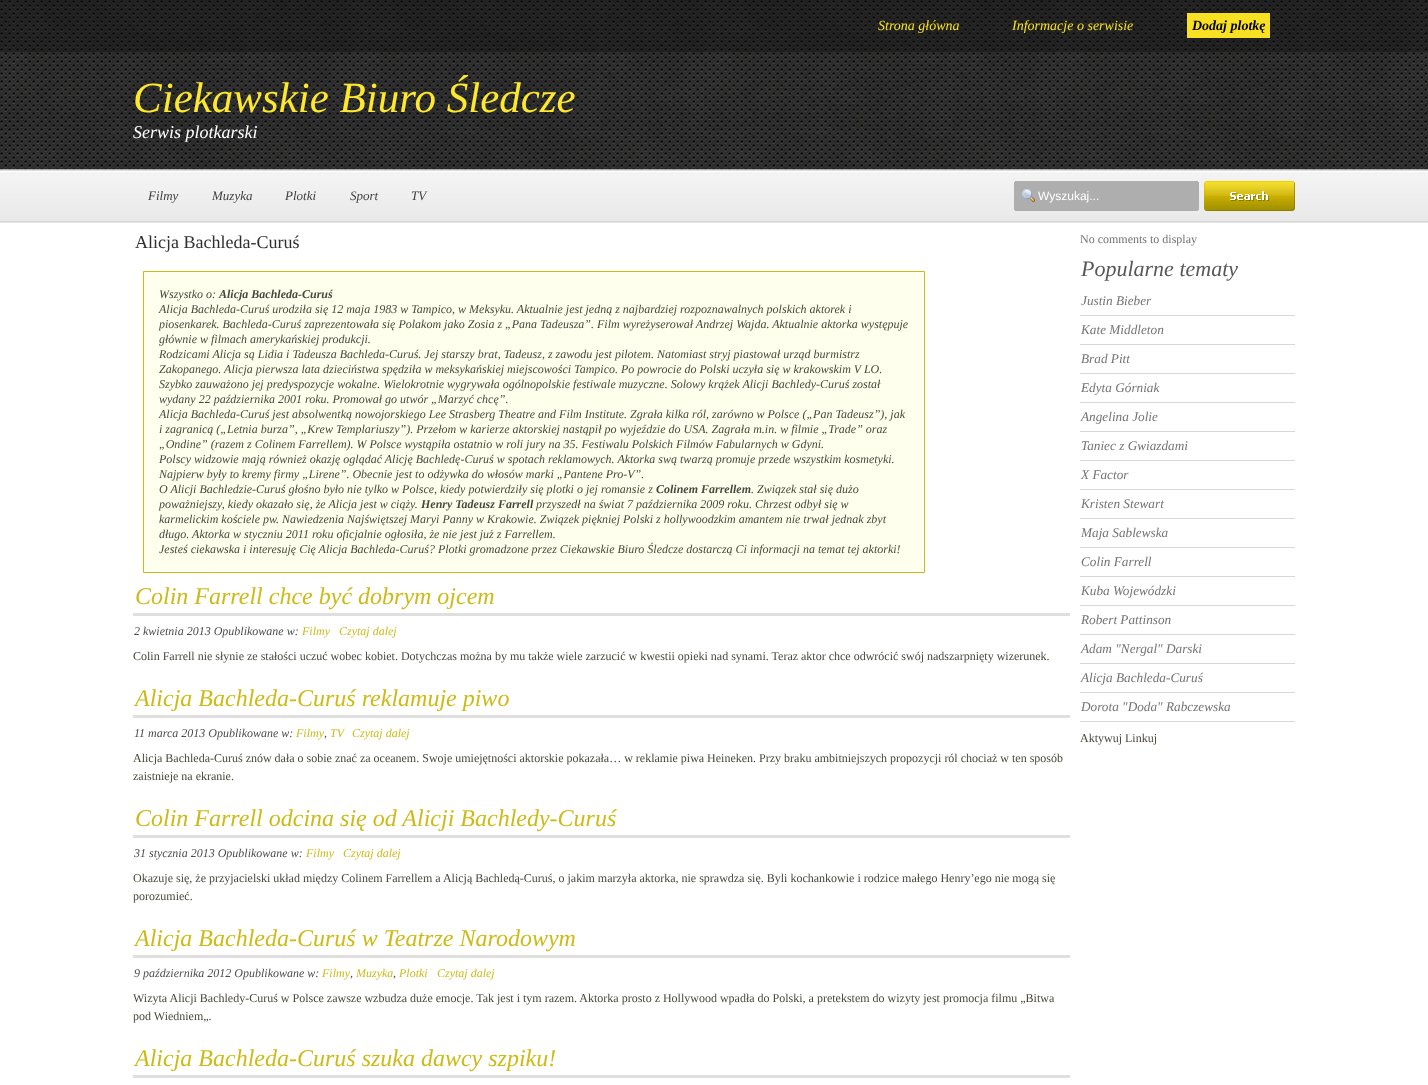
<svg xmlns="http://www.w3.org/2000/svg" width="1428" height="1085">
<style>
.a{font:italic 14px Liberation Serif;fill:#f8e122}
.b{font:italic bold 14px Liberation Serif;fill:#000}
.c{font:italic 43px Liberation Serif;fill:#fee82e}
.d{font:italic 18px Liberation Serif;fill:#fff}
.e{font:italic 13px Liberation Serif;fill:#3e3e3e}
.f{font:12px Liberation Sans;fill:#fff}
.g{font:18px Liberation Serif;fill:#2e2e2e}
.h{font:italic 12px Liberation Serif;fill:#4a483d}
.i{font:italic bold 12px Liberation Serif;fill:#4a483d}
.j{font:italic 24px Liberation Serif;fill:#cdba17}
.k{font:italic 12px Liberation Serif;fill:#4c4c4c}
.l{font:italic 12px Liberation Serif;fill:#cdba17}
.m{font:12px Liberation Serif;fill:#4a483d}
.n{font:12px Liberation Serif;fill:#737373}
.o{font:italic 22px Liberation Serif;fill:#585858}
.p{font:italic 13.25px Liberation Serif;fill:#737373}
</style>
<rect width="100%" height="100%" fill="#fff"/>
<image href="1.png" x="0" y="0" width="1428" height="223"/>
<path fill="#f8e122" d="M1187 13h83v25H1187z"/>
<image href="2.png" x="1014" y="181" width="281" height="30"/>
<path fill="#ffe" stroke="#cdba17" d="M143.5 271.5h781v301H143.5z"/>
<path fill="#dfdfdf" d="M133 613h937v3H133z"/>
<path fill="#dfdfdf" d="M133 715h937v3H133z"/>
<path fill="#dfdfdf" d="M133 835h937v3H133z"/>
<path fill="#dfdfdf" d="M133 955h937v3H133z"/>
<path fill="#dfdfdf" d="M133 1075h937v3H133z"/>
<path fill="#d8d8d8" d="M1080 315h215v1H1080z"/>
<path fill="#d8d8d8" d="M1080 344h215v1H1080z"/>
<path fill="#d8d8d8" d="M1080 373h215v1H1080z"/>
<path fill="#d8d8d8" d="M1080 402h215v1H1080z"/>
<path fill="#d8d8d8" d="M1080 431h215v1H1080z"/>
<path fill="#d8d8d8" d="M1080 460h215v1H1080z"/>
<path fill="#d8d8d8" d="M1080 489h215v1H1080z"/>
<path fill="#d8d8d8" d="M1080 518h215v1H1080z"/>
<path fill="#d8d8d8" d="M1080 547h215v1H1080z"/>
<path fill="#d8d8d8" d="M1080 576h215v1H1080z"/>
<path fill="#d8d8d8" d="M1080 605h215v1H1080z"/>
<path fill="#d8d8d8" d="M1080 634h215v1H1080z"/>
<path fill="#d8d8d8" d="M1080 663h215v1H1080z"/>
<path fill="#d8d8d8" d="M1080 692h215v1H1080z"/>
<path fill="#d8d8d8" d="M1080 721h215v1H1080z"/>
<text class="a" x="878" y="30">Strona główna</text>
<text class="a" x="1012" y="30">Informacje o serwisie</text>
<text class="b" x="1192" y="30">Dodaj plotkę</text>
<text class="c" x="133" y="112">Ciekawskie Biuro Śledcze</text>
<text class="d" x="133" y="138">Serwis plotkarski</text>
<text class="e" x="148" y="200">Filmy</text>
<text class="e" x="212" y="200">Muzyka</text>
<text class="e" x="285" y="200">Plotki</text>
<text class="e" x="350" y="200">Sport</text>
<text class="e" x="411" y="200">TV</text>
<text class="f" x="1038" y="200">Wyszukaj...</text>
<text class="g" x="135" y="248">Alicja Bachleda-Curuś</text>
<text class="h" x="159" y="298">Wszystko o:</text>
<text class="i" x="219" y="298">Alicja Bachleda-Curuś</text>
<text class="h" x="159" y="313">Alicja Bachleda-Curuś urodziła się 12 maja 1983 w Tampico, w Meksyku. Aktualnie jest jedną z najbardziej rozpoznawalnych polskich aktorek i</text>
<text class="h" x="159" y="328">piosenkarek. Bachleda-Curuś zaprezentowała się Polakom jako Zosia z „Pana Tadeusza”. Film wyreżyserował Andrzej Wajda. Aktualnie aktorka występuje</text>
<text class="h" x="159" y="343">głównie w filmach amerykańskiej produkcji.</text>
<text class="h" x="159" y="358">Rodzicami Alicja są Lidia i Tadeusza Bachleda-Curuś. Jej starszy brat, Tadeusz, z zawodu jest pilotem. Natomiast stryj piastował urząd burmistrz</text>
<text class="h" x="159" y="373">Zakopanego. Alicja pierwsza lata dzieciństwa spędziła w meksykańskiej miejscowości Tampico. Po powrocie do Polski uczyła się w krakowskim V LO.</text>
<text class="h" x="159" y="388">Szybko zauważono jej predyspozycje wokalne. Wielokrotnie wygrywała ogólnopolskie festiwale muzyczne. Solowy krążek Alicji Bachledy-Curuś został</text>
<text class="h" x="159" y="403">wydany 22 października 2001 roku. Promował go utwór „Marzyć chcę”.</text>
<text class="h" x="159" y="418">Alicja Bachleda-Curuś jest absolwentką nowojorskiego Lee Strasberg Theatre and Film Institute. Zgrała kilka ról, zarówno w Polsce („Pan Tadeusz”), jak</text>
<text class="h" x="159" y="433">i zagranicą („Letnia burza”, „Krew Templariuszy”). Przełom w karierze aktorskiej nastąpił po wyjeździe do USA. Zagrała m.in. w filmie „Trade” oraz</text>
<text class="h" x="159" y="448">„Ondine” (razem z Colinem Farrellem). W Polsce wystąpiła ostatnio w roli jury na 35. Festiwalu Polskich Filmów Fabularnych w Gdyni.</text>
<text class="h" x="159" y="463">Polscy widzowie mają również okazję oglądać Alicję Bachledę-Curuś w spotach reklamowych. Aktorka swą twarzą promuje przede wszystkim kosmetyki.</text>
<text class="h" x="159" y="478">Najpierw były to kremy firmy „Lirene”. Obecnie jest to odżywka do włosów marki „Pantene Pro-V”.</text>
<text class="h" x="159" y="493">O Alicji Bachledzie-Curuś głośno było nie tylko w Polsce, kiedy potwierdziły się plotki o jej romansie z</text>
<text class="i" x="656" y="493">Colinem Farrellem</text>
<text class="h" x="751" y="493">. Związek stał się dużo</text>
<text class="h" x="159" y="508">poważniejszy, kiedy okazało się, że Alicja jest w ciąży.</text>
<text class="i" x="421" y="508">Henry Tadeusz Farrell</text>
<text class="h" x="536" y="508">przyszedł na świat 7 października 2009 roku. Chrzest odbył się w</text>
<text class="h" x="159" y="523">karmelickim kościele pw. Nawiedzenia Najświętszej Maryi Panny w Krakowie. Związek piękniej Polski z hollywoodzkim amantem nie trwał jednak zbyt</text>
<text class="h" x="159" y="538">długo. Aktorka w styczniu 2011 roku oficjalnie ogłosiła, że nie jest już z Farrellem.</text>
<text class="h" x="159" y="553">Jesteś ciekawska i interesuję Cię Alicja Bachleda-Curuś? Plotki gromadzone przez Ciekawskie Biuro Śledcze dostarczą Ci informacji na temat tej aktorki!</text>
<text class="j" x="135" y="604">Colin Farrell chce być dobrym ojcem</text>
<text class="k" x="134" y="635">2 kwietnia 2013 Opublikowane w:</text>
<text class="l" x="302" y="635">Filmy</text>
<text class="l" x="339" y="635">Czytaj dalej</text>
<text class="m" x="133" y="660">Colin Farrell nie słynie ze stałości uczuć wobec kobiet. Dotychczas można by mu także wiele zarzucić w kwestii opieki nad synami. Teraz aktor chce odwrócić swój nadszarpnięty wizerunek.</text>
<text class="j" x="135" y="706">Alicja Bachleda-Curuś reklamuje piwo</text>
<text class="k" x="134" y="737">11 marca 2013 Opublikowane w:</text>
<text class="l" x="296" y="737">Filmy</text>
<text class="l" x="330" y="737">TV</text>
<text class="l" x="352" y="737">Czytaj dalej</text>
<text class="k" x="324" y="737">,</text>
<text class="m" x="133" y="762">Alicja Bachleda-Curuś znów dała o sobie znać za oceanem. Swoje umiejętności aktorskie pokazała… w reklamie piwa Heineken. Przy braku ambitniejszych propozycji ról chociaż w ten sposób</text>
<text class="m" x="133" y="780">zaistnieje na ekranie.</text>
<text class="j" x="135" y="826">Colin Farrell odcina się od Alicji Bachledy-Curuś</text>
<text class="k" x="134" y="857">31 stycznia 2013 Opublikowane w:</text>
<text class="l" x="306" y="857">Filmy</text>
<text class="l" x="343" y="857">Czytaj dalej</text>
<text class="m" x="133" y="882">Okazuje się, że przyjacielski układ między Colinem Farrellem a Alicją Bachledą-Curuś, o jakim marzyła aktorka, nie sprawdza się. Byli kochankowie i rodzice małego Henry’ego nie mogą się</text>
<text class="m" x="133" y="900">porozumieć.</text>
<text class="j" x="135" y="946">Alicja Bachleda-Curuś w Teatrze Narodowym</text>
<text class="k" x="134" y="977">9 października 2012 Opublikowane w:</text>
<text class="l" x="322" y="977">Filmy</text>
<text class="l" x="356" y="977">Muzyka</text>
<text class="l" x="399" y="977">Plotki</text>
<text class="l" x="437" y="977">Czytaj dalej</text>
<text class="k" x="350" y="977">,</text>
<text class="k" x="393" y="977">,</text>
<text class="m" x="133" y="1002">Wizyta Alicji Bachledy-Curuś w Polsce zawsze wzbudza duże emocje. Tak jest i tym razem. Aktorka prosto z Hollywood wpadła do Polski, a pretekstem do wizyty jest promocja filmu „Bitwa</text>
<text class="m" x="133" y="1020">pod Wiedniem„.</text>
<text class="j" x="135" y="1066">Alicja Bachleda-Curuś szuka dawcy szpiku!</text>
<text class="n" x="1080" y="243">No comments to display</text>
<text class="o" x="1081" y="276">Popularne tematy</text>
<text class="p" x="1081" y="305">Justin Bieber</text>
<text class="p" x="1081" y="334">Kate Middleton</text>
<text class="p" x="1081" y="363">Brad Pitt</text>
<text class="p" x="1081" y="392">Edyta Górniak</text>
<text class="p" x="1081" y="421">Angelina Jolie</text>
<text class="p" x="1081" y="450">Taniec z Gwiazdami</text>
<text class="p" x="1081" y="479">X Factor</text>
<text class="p" x="1081" y="508">Kristen Stewart</text>
<text class="p" x="1081" y="537">Maja Sablewska</text>
<text class="p" x="1081" y="566">Colin Farrell</text>
<text class="p" x="1081" y="595">Kuba Wojewódzki</text>
<text class="p" x="1081" y="624">Robert Pattinson</text>
<text class="p" x="1081" y="653">Adam "Nergal" Darski</text>
<text class="p" x="1081" y="682">Alicja Bachleda-Curuś</text>
<text class="p" x="1081" y="711">Dorota "Doda" Rabczewska</text>
<text class="m" x="1080" y="742">Aktywuj Linkuj</text>
</svg>
